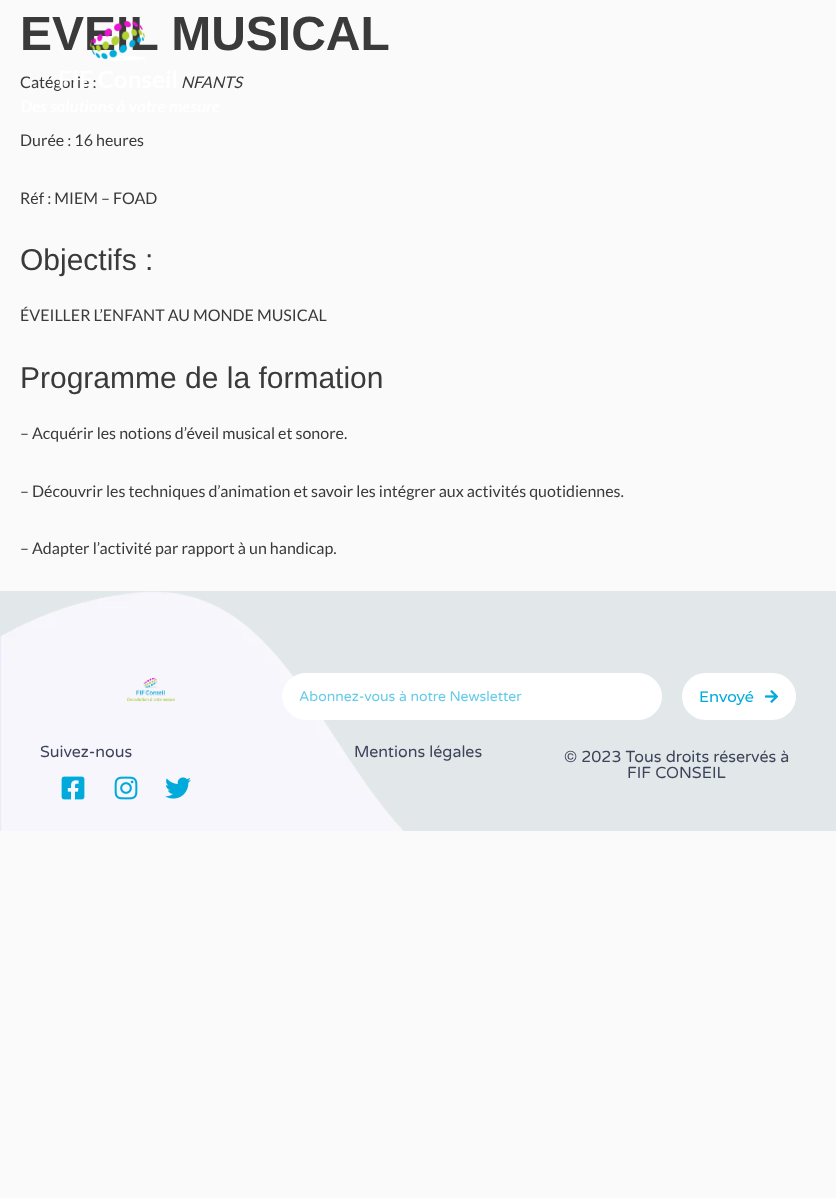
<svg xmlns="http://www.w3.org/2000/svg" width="836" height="1198">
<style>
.a{font:bold 48px Liberation Sans;fill:#3a3a3a}
.b{font:16px Lato;fill:#3a3a3a}
.c{font:italic 16px Lato;fill:#3a3a3a}
.d{font:30px Liberation Sans;fill:#3a3a3a}
.e{font:14px Varela Round;fill:#66cce9}
.f{font:500 15px Montserrat;fill:#00aadb}
.g{font:16px Varela Round;fill:#3d4459}
</style>
<rect width="100%" height="100%" fill="#fafafa"/>
<path fill="#e2e7e9" d="M0 591h836v240H0z"/>
<image href="2.png" x="0" y="591" width="404" height="240"/>
<image href="3.png" x="127" y="678" width="48" height="24"/>
<rect fill="#fff" stroke="#fff" x="282.5" y="673.5" width="379" height="46" rx="23"/>
<rect fill="#fff" x="682" y="673" width="114" height="47" rx="23.5"/>
<image href="4.png" x="764" y="690" width="14" height="13"/>
<image href="5.png" x="61" y="776" width="24" height="24"/>
<image href="6.png" x="114" y="776" width="24" height="24"/>
<image href="7.png" x="165" y="777" width="26" height="22"/>
<text class="a" x="20" y="50">EVEIL MUSICAL</text>
<text class="b" x="20" y="88">Catégorie :</text>
<text class="c" x="181" y="88">NFANTS</text>
<text class="b" x="20" y="146">Durée : 16 heures</text>
<text class="b" x="20" y="204">Réf : MIEM – FOAD</text>
<text class="d" x="20" y="270">Objectifs :</text>
<text class="b" x="20" y="321">ÉVEILLER L’ENFANT AU MONDE MUSICAL</text>
<text class="d" x="20" y="388">Programme de la formation</text>
<text class="b" x="20" y="439">– Acquérir les notions d’éveil musical et sonore.</text>
<text class="b" x="20" y="497">– Découvrir les techniques d’animation et savoir les intégrer aux activités quotidiennes.</text>
<text class="b" x="20" y="554">– Adapter l’activité par rapport à un handicap.</text>
<image href="1.png" x="22" y="21" width="197" height="91"/>
<text class="e" x="299" y="701">Abonnez-vous à notre Newsletter</text>
<text class="f" x="699" y="702">Envoyé</text>
<text class="g" x="40" y="757">Suivez-nous</text>
<text class="g" x="354" y="757">Mentions légales</text>
<text class="g" x="564" y="762">© 2023 Tous droits réservés à</text>
<text class="g" x="627" y="778">FIF CONSEIL</text>
</svg>
